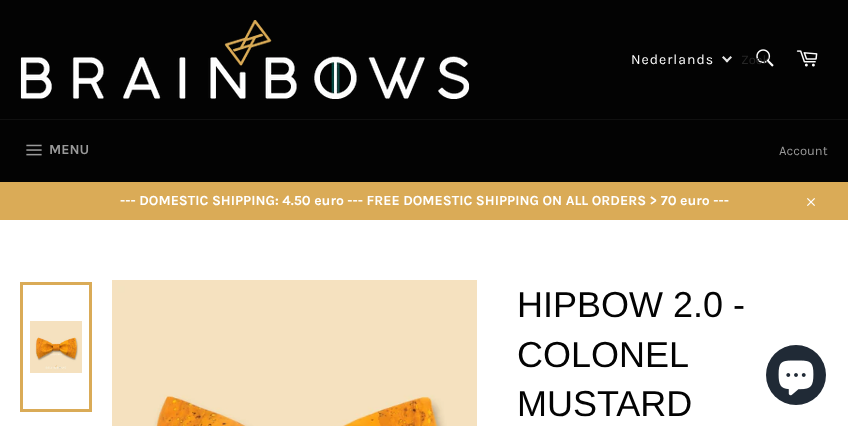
<svg xmlns="http://www.w3.org/2000/svg" width="848" height="426">
<style>
.a{font:14px Karla;letter-spacing:1px;fill:#fff}
.b{font:13px Karla;fill:#262626}
.c{font:bold 14px Karla;fill:#9a9a9a}
.d{font:13px Karla;fill:#9a9a9a}
.e{font:bold 14px Karla;fill:#fff}
.f{font:36px Arimo;fill:#030303}
</style>
<rect width="100%" height="100%" fill="#fff"/>
<path fill="#030303" d="M0 0h848v119H0z"/>
<image href="1.png" x="20" y="20" width="450" height="79"/>
<path fill="#e6e6e6" d="M730.5 56l1.5 1.5l-5 5l-1.5-1.5z"/>
<path fill="#e6e6e6" d="M723.5 56l5 5l-1.5 1.5l-5-5z"/>
<image href="2.png" x="756" y="49" width="18" height="18"/>
<image href="3.png" x="796" y="50" width="22" height="17"/>
<path fill="#030303" d="M0 120h848v62H0z"/>
<path fill="#101010" d="M0 119h848v1H0z"/>
<image href="4.png" x="26" y="144" width="16" height="12"/>
<path fill="#daab57" d="M0 182h848v38H0z"/>
<image href="5.png" x="807" y="198" width="8" height="8"/>
<image href="6.png" x="30" y="321" width="52" height="52"/>
<path fill="none" stroke="#daab57" stroke-width="3" d="M21.5 283.5h69v127H21.5z"/>
<image href="7.png" x="112" y="280" width="365" height="146"/>
<circle fill="#202a36" cx="796" cy="375" r="30"/>
<image href="8.png" x="778" y="360" width="36" height="36"/>
<text class="a" x="631" y="64">Nederlands</text>
<text class="b" x="741" y="64">Zoek</text>
<text class="c" x="49" y="154">MENU</text>
<text class="d" x="779" y="155">Account</text>
<text class="e" x="120" y="205">--- DOMESTIC SHIPPING: 4.50 euro --- FREE DOMESTIC SHIPPING ON ALL ORDERS &gt; 70 euro ---</text>
<text class="f" x="517" y="317">HIPBOW 2.0 -</text>
<text class="f" x="517" y="367">COLONEL</text>
<text class="f" x="517" y="416">MUSTARD</text>
</svg>
